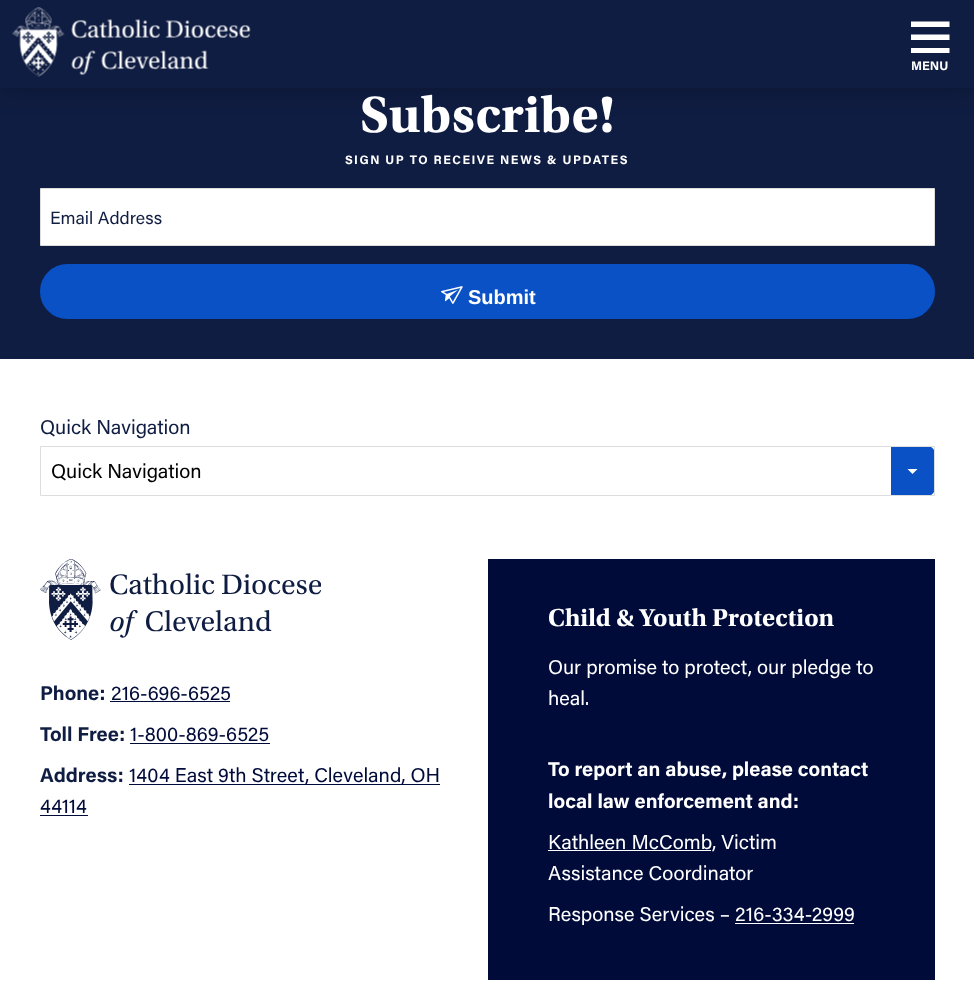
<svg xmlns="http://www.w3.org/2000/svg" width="974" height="988">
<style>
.a{font:bold 12.5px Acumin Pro;fill:#fff}
.b{font:bold 53.5px Utopia;fill:#fff}
.c{font:bold 12.25px Acumin Pro;letter-spacing:1.5px;fill:#fff}
.d{font:17.75px Acumin Pro;fill:#101d42}
.e{font:bold 20px Liberation Sans;fill:#fff}
.f{font:20px Acumin Pro;fill:#101d42}
.g{font:20px Acumin Pro;fill:#000}
.h{font:bold 20px Acumin Pro;fill:#101d42}
.i{font:20px Acumin Pro;fill:#000b39}
.j{font:bold 25.75px Utopia;fill:#fff}
.k{font:20px Acumin Pro;fill:#fff}
.l{font:bold 20px Acumin Pro;fill:#fff}
</style>
<rect width="100%" height="100%" fill="#fff"/>
<path fill="#101d42" d="M0 88h974v271H0z"/>
<path fill="#00000033" filter="blur(12.5px)" d="M0 4h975v87H0z"/>
<path fill="#101d42" d="M0 0h974v88H0z"/>
<image href="1.png" x="12" y="7" width="239" height="70"/>
<path fill="#fff" d="M911 21.5h38.5v5.5h-38.5zm0 13h38.5v5.5h-38.5zm0 13.5h38.5v5h-38.5z"/>
<path fill="#fff" stroke="#ddd" d="M40.5 188.5h894v57H40.5z"/>
<rect fill="#0a51c5" stroke="#0a51c5" stroke-width="3" x="41.5" y="265.5" width="892" height="52" rx="26"/>
<image href="2.png" x="441" y="286" width="22" height="18"/>
<path fill="#0a51c5" d="M891 446h36c4.5 0 8 3.5 8 8v34c0 4.5-3.5 8-8 8h-36z"/>
<path fill="#fff" d="M907.5 469h10l-5 5z"/>
<path fill="none" stroke="#ddd" d="M40.5 446.5h894v49H40.5z"/>
<image href="3.png" x="40" y="559" width="281" height="81"/>
<path fill="#000b39" d="M110 701h120v1H110z"/>
<path fill="#000b39" d="M130 743h140v1H130z"/>
<path fill="#000b39" d="M129 784h311v1H129z"/>
<path fill="#000b39" d="M40 815h48v1H40z"/>
<path fill="#000b39" d="M488 559h447v421H488z"/>
<path fill="#fff" d="M548 850h163v1H548z"/>
<path fill="#fff" d="M735 923h119v1H735z"/>
<text class="a" x="911" y="70">MENU</text>
<text class="b" x="360" y="132">Subscribe!</text>
<text class="c" x="345" y="164">SIGN UP TO RECEIVE NEWS &amp; UPDATES</text>
<text class="d" x="50" y="224">Email Address</text>
<text class="e" x="468" y="304">Submit</text>
<text class="f" x="40" y="434">Quick Navigation</text>
<text class="g" x="51" y="478">Quick Navigation</text>
<text class="h" x="40" y="700">Phone:</text>
<text class="i" x="111" y="700">216-696-6525</text>
<text class="h" x="40" y="741">Toll Free:</text>
<text class="i" x="130" y="741">1-800-869-6525</text>
<text class="h" x="40" y="782">Address:</text>
<text class="i" x="129" y="782">1404 East 9th Street, Cleveland, OH</text>
<text class="i" x="40" y="813">44114</text>
<text class="j" x="548" y="626">Child &amp; Youth Protection</text>
<text class="k" x="548" y="674">Our promise to protect, our pledge to</text>
<text class="k" x="548" y="705">heal.</text>
<text class="l" x="548" y="776">To report an abuse, please contact</text>
<text class="l" x="548" y="808">local law enforcement and:</text>
<text class="k" x="548" y="849">Kathleen McComb, Victim</text>
<text class="k" x="548" y="880">Assistance Coordinator</text>
<text class="k" x="548" y="921">Response Services – 216-334-2999</text>
</svg>
